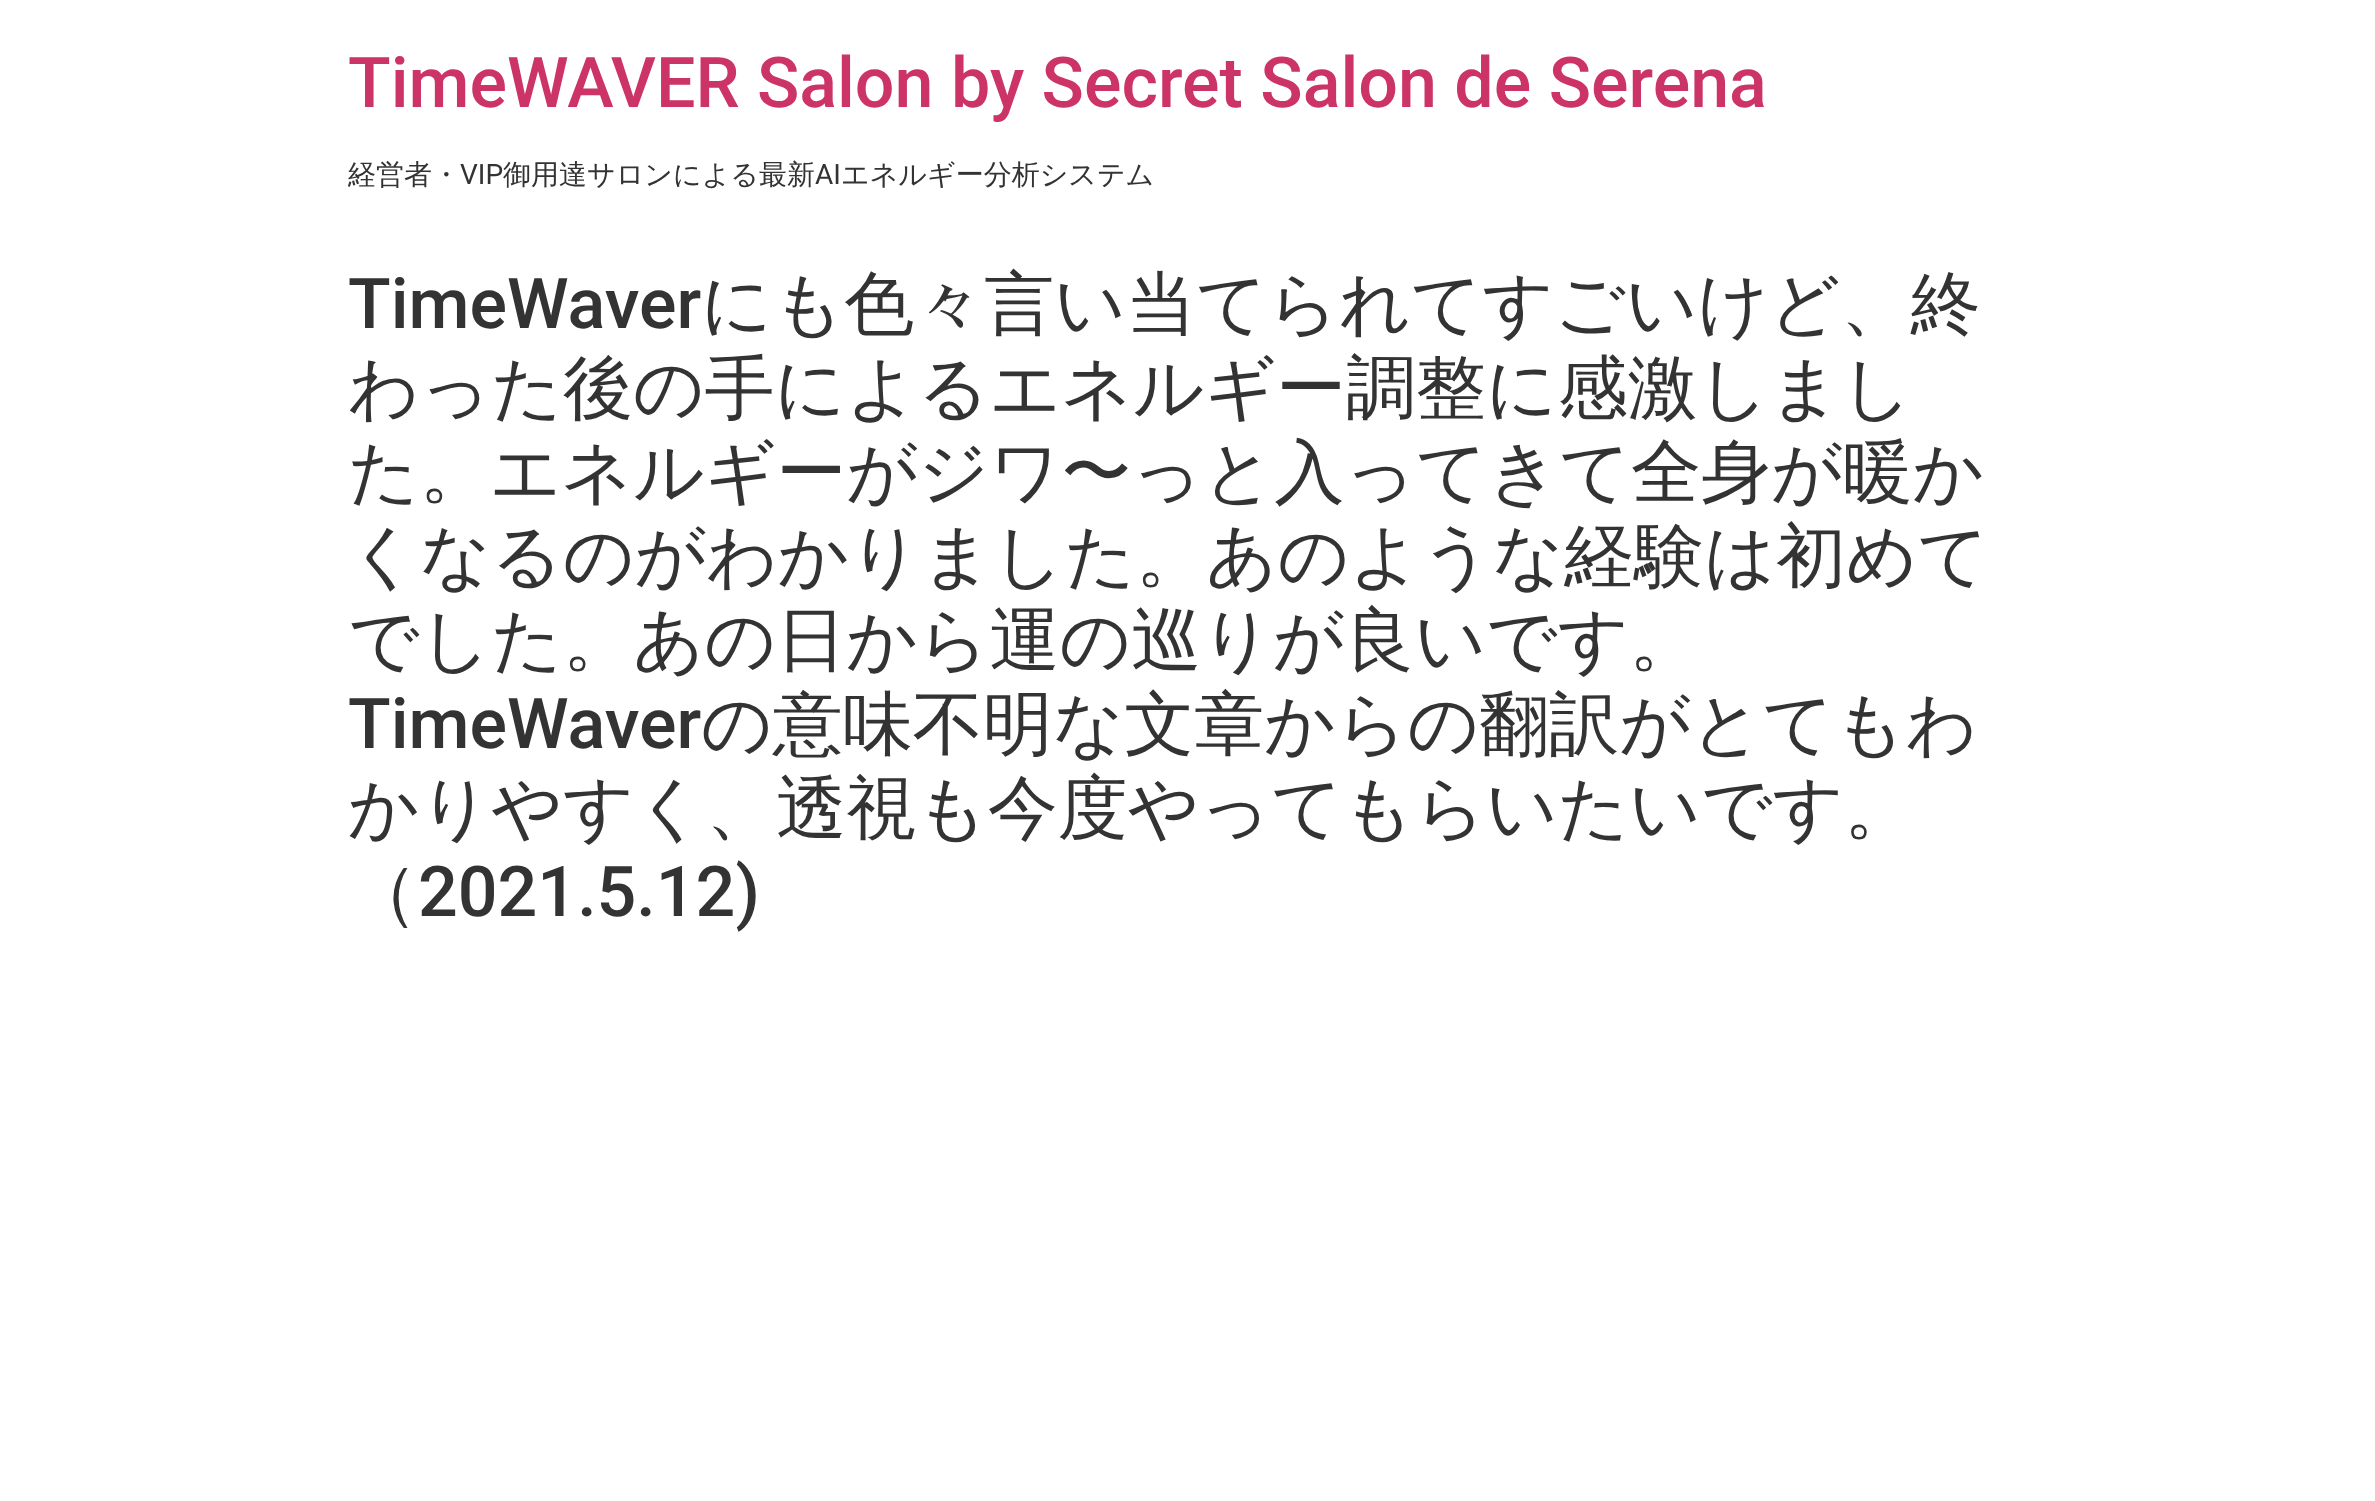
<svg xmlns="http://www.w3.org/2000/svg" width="2375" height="1501">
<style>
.a{font:500 70px Roboto;fill:#c36}
.b{font:500 28px WenQuanYi Zen Hei;fill:#333}
.c{font:28px Roboto;fill:#333}
.d{font:500 70px Roboto;fill:#333}
.e{font:500 70px WenQuanYi Zen Hei;fill:#333}
</style>
<rect width="100%" height="100%" fill="#fff"/>
<text class="a" x="348" y="107">TimeWAVER Salon by Secret Salon de Serena</text>
<text class="b" x="348" y="184">経営者・</text>
<text class="c" x="460" y="184">VIP</text>
<text class="b" x="503" y="184">御用達サロンによる最新</text>
<text class="c" x="815" y="184">AI</text>
<text class="b" x="841" y="184">エネルギー分析システム</text>
<text class="d" x="348" y="328">TimeWaver</text>
<text class="e" x="701" y="328">にも色々言い当てられてすごいけど、終</text>
<text class="e" x="348" y="412">わった後の手によるエネルギー調整に感激しまし</text>
<text class="e" x="348" y="496">た。エネルギーがジワ〜っと入ってきて全身が暖か</text>
<text class="e" x="348" y="580">くなるのがわかりました。あのような経験は初めて</text>
<text class="e" x="348" y="664">でした。あの日から運の巡りが良いです。</text>
<text class="d" x="348" y="748">TimeWaver</text>
<text class="e" x="701" y="748">の意味不明な文章からの翻訳がとてもわ</text>
<text class="e" x="348" y="832">かりやすく、透視も今度やってもらいたいです。</text>
<text class="e" x="348" y="916">（</text>
<text class="d" x="418" y="916">2021.5.12)</text>
</svg>
